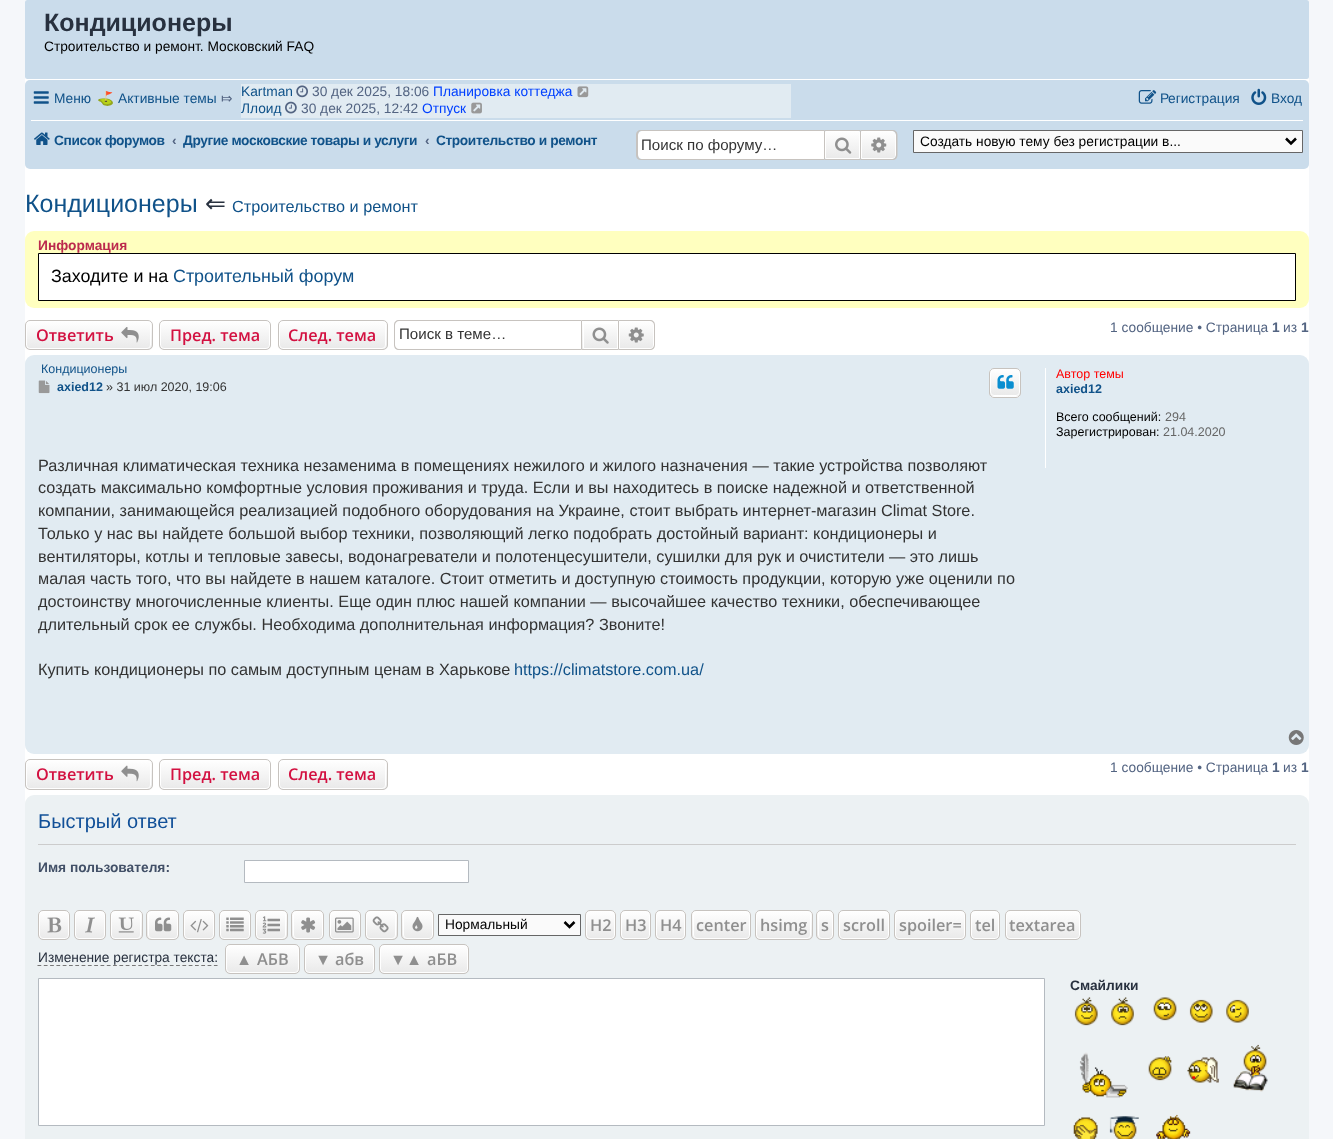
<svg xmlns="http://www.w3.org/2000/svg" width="1333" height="1139">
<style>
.a{font:bold 25px Liberation Sans;fill:#28313f}
.b{font:13.75px Liberation Sans;fill:#000}
.c{font:13.75px Liberation Sans;fill:#105289}
.d{font:13.75px Noto Color Emoji;fill:#536482}
.e{font:13.75px DejaVu Sans;fill:#536482}
.f{font:13.75px Liberation Sans;fill:#536482}
.g{font:13.75px Liberation Sans;fill:#0040ff}
.h{font:bold 13.75px Liberation Sans;letter-spacing:-0.4px;fill:#105289}
.i{font:bold 13.75px Liberation Sans;fill:#536482}
.j{font:15.1px Liberation Sans;fill:#333}
.k{font:25px Liberation Sans;fill:#105289}
.l{font:25px DejaVu Sans;fill:#28313f}
.m{font:16.25px Liberation Sans;fill:#105289}
.n{font:bold 13.75px Liberation Sans;fill:#bc2a4d}
.o{font:17.9px Liberation Sans;fill:#000}
.p{font:17.9px Liberation Sans;fill:#105289}
.q{font:600 16.25px Open Sans;fill:#d31141}
.r{font:12.5px Liberation Sans;fill:#105289}
.s{font:bold 12.5px Liberation Sans;fill:#105289}
.t{font:12.5px Liberation Sans;fill:#333}
.u{font:16.25px Liberation Sans;fill:#333}
.v{font:12.5px Liberation Sans;fill:#f00}
.w{font:12.5px Liberation Sans;fill:#000}
.x{font:12.5px Liberation Sans;fill:#666}
.y{font:20px Liberation Sans;fill:#115098}
.z{font:bold 13.75px Liberation Sans;fill:#425067}
.a1{font:600 16.25px Open Sans;fill:#8f8f8f}
.b1{font:13.75px Liberation Sans;fill:#28313f}
.c1{font:bold 16.25px Liberation Sans;fill:#8f8f8f}
.d1{font:bold 13.75px Liberation Sans;fill:#28313f}
</style>
<defs>
<linearGradient id="g1" gradientUnits="userSpaceOnUse" x1="843" y1="131" x2="843" y2="159"><stop offset="0" stop-color="#fff"/><stop offset="1" stop-color="#e9e9e9"/></linearGradient>
<linearGradient id="g2" gradientUnits="userSpaceOnUse" x1="879" y1="131" x2="879" y2="159"><stop offset="0" stop-color="#fff"/><stop offset="1" stop-color="#e9e9e9"/></linearGradient>
<clipPath id="clip1"><rect x="25" y="320" width="128" height="30" rx="5"/></clipPath>
<linearGradient id="g3" gradientUnits="userSpaceOnUse" x1="89" y1="321" x2="89" y2="349"><stop offset="0" stop-color="#fff"/><stop offset="1" stop-color="#e9e9e9"/></linearGradient>
<clipPath id="clip2"><rect x="159" y="320" width="112" height="30" rx="5"/></clipPath>
<linearGradient id="g4" gradientUnits="userSpaceOnUse" x1="215" y1="321" x2="215" y2="349"><stop offset="0" stop-color="#fff"/><stop offset="1" stop-color="#e9e9e9"/></linearGradient>
<clipPath id="clip3"><rect x="278" y="320" width="110" height="30" rx="5"/></clipPath>
<linearGradient id="g5" gradientUnits="userSpaceOnUse" x1="333" y1="321" x2="333" y2="349"><stop offset="0" stop-color="#fff"/><stop offset="1" stop-color="#e9e9e9"/></linearGradient>
<linearGradient id="g6" gradientUnits="userSpaceOnUse" x1="600" y1="321" x2="600" y2="349"><stop offset="0" stop-color="#fff"/><stop offset="1" stop-color="#e9e9e9"/></linearGradient>
<linearGradient id="g7" gradientUnits="userSpaceOnUse" x1="636" y1="321" x2="636" y2="349"><stop offset="0" stop-color="#fff"/><stop offset="1" stop-color="#e9e9e9"/></linearGradient>
<clipPath id="clip4"><rect x="989" y="368" width="32" height="30" rx="5"/></clipPath>
<linearGradient id="g8" gradientUnits="userSpaceOnUse" x1="1005" y1="369" x2="1005" y2="396"><stop offset="0" stop-color="#fff"/><stop offset="1" stop-color="#e9e9e9"/></linearGradient>
<linearGradient id="g9" gradientUnits="userSpaceOnUse" x1="1005" y1="396" x2="1005" y2="424"><stop offset="0" stop-color="#fff"/><stop offset="1" stop-color="#e9e9e9"/></linearGradient>
<clipPath id="clip5"><rect x="25" y="759" width="128" height="31" rx="5"/></clipPath>
<linearGradient id="g10" gradientUnits="userSpaceOnUse" x1="89" y1="760" x2="89" y2="789"><stop offset="0" stop-color="#fff"/><stop offset="1" stop-color="#e9e9e9"/></linearGradient>
<clipPath id="clip6"><rect x="159" y="759" width="112" height="31" rx="5"/></clipPath>
<linearGradient id="g11" gradientUnits="userSpaceOnUse" x1="215" y1="760" x2="215" y2="789"><stop offset="0" stop-color="#fff"/><stop offset="1" stop-color="#e9e9e9"/></linearGradient>
<clipPath id="clip7"><rect x="278" y="759" width="110" height="31" rx="5"/></clipPath>
<linearGradient id="g12" gradientUnits="userSpaceOnUse" x1="333" y1="760" x2="333" y2="789"><stop offset="0" stop-color="#fff"/><stop offset="1" stop-color="#e9e9e9"/></linearGradient>
<clipPath id="clip8"><rect x="38" y="910" width="32" height="30" rx="5"/></clipPath>
<linearGradient id="g13" gradientUnits="userSpaceOnUse" x1="54" y1="911" x2="54" y2="939"><stop offset="0" stop-color="#fff"/><stop offset="1" stop-color="#e9e9e9"/></linearGradient>
<clipPath id="clip9"><rect x="74" y="910" width="32" height="30" rx="5"/></clipPath>
<linearGradient id="g14" gradientUnits="userSpaceOnUse" x1="90" y1="911" x2="90" y2="939"><stop offset="0" stop-color="#fff"/><stop offset="1" stop-color="#e9e9e9"/></linearGradient>
<clipPath id="clip10"><rect x="110" y="910" width="33" height="30" rx="5"/></clipPath>
<linearGradient id="g15" gradientUnits="userSpaceOnUse" x1="126" y1="911" x2="126" y2="939"><stop offset="0" stop-color="#fff"/><stop offset="1" stop-color="#e9e9e9"/></linearGradient>
<clipPath id="clip11"><rect x="146" y="910" width="33" height="30" rx="5"/></clipPath>
<linearGradient id="g16" gradientUnits="userSpaceOnUse" x1="163" y1="911" x2="163" y2="939"><stop offset="0" stop-color="#fff"/><stop offset="1" stop-color="#e9e9e9"/></linearGradient>
<clipPath id="clip12"><rect x="183" y="910" width="32" height="30" rx="5"/></clipPath>
<linearGradient id="g17" gradientUnits="userSpaceOnUse" x1="199" y1="911" x2="199" y2="939"><stop offset="0" stop-color="#fff"/><stop offset="1" stop-color="#e9e9e9"/></linearGradient>
<clipPath id="clip13"><rect x="219" y="910" width="32" height="30" rx="5"/></clipPath>
<linearGradient id="g18" gradientUnits="userSpaceOnUse" x1="235" y1="911" x2="235" y2="939"><stop offset="0" stop-color="#fff"/><stop offset="1" stop-color="#e9e9e9"/></linearGradient>
<clipPath id="clip14"><rect x="255" y="910" width="33" height="30" rx="5"/></clipPath>
<linearGradient id="g19" gradientUnits="userSpaceOnUse" x1="271" y1="911" x2="271" y2="939"><stop offset="0" stop-color="#fff"/><stop offset="1" stop-color="#e9e9e9"/></linearGradient>
<clipPath id="clip15"><rect x="291" y="910" width="33" height="30" rx="5"/></clipPath>
<linearGradient id="g20" gradientUnits="userSpaceOnUse" x1="308" y1="911" x2="308" y2="939"><stop offset="0" stop-color="#fff"/><stop offset="1" stop-color="#e9e9e9"/></linearGradient>
<clipPath id="clip16"><rect x="329" y="910" width="32" height="30" rx="5"/></clipPath>
<linearGradient id="g21" gradientUnits="userSpaceOnUse" x1="345" y1="911" x2="345" y2="939"><stop offset="0" stop-color="#fff"/><stop offset="1" stop-color="#e9e9e9"/></linearGradient>
<clipPath id="clip17"><rect x="365" y="910" width="33" height="30" rx="5"/></clipPath>
<linearGradient id="g22" gradientUnits="userSpaceOnUse" x1="381" y1="911" x2="381" y2="939"><stop offset="0" stop-color="#fff"/><stop offset="1" stop-color="#e9e9e9"/></linearGradient>
<clipPath id="clip18"><rect x="401" y="910" width="33" height="30" rx="5"/></clipPath>
<linearGradient id="g23" gradientUnits="userSpaceOnUse" x1="418" y1="911" x2="418" y2="939"><stop offset="0" stop-color="#fff"/><stop offset="1" stop-color="#e9e9e9"/></linearGradient>
<clipPath id="clip19"><rect x="585" y="910" width="31" height="30" rx="5"/></clipPath>
<linearGradient id="g24" gradientUnits="userSpaceOnUse" x1="601" y1="911" x2="601" y2="939"><stop offset="0" stop-color="#fff"/><stop offset="1" stop-color="#e9e9e9"/></linearGradient>
<clipPath id="clip20"><rect x="620" y="910" width="31" height="30" rx="5"/></clipPath>
<linearGradient id="g25" gradientUnits="userSpaceOnUse" x1="636" y1="911" x2="636" y2="939"><stop offset="0" stop-color="#fff"/><stop offset="1" stop-color="#e9e9e9"/></linearGradient>
<clipPath id="clip21"><rect x="655" y="910" width="31" height="30" rx="5"/></clipPath>
<linearGradient id="g26" gradientUnits="userSpaceOnUse" x1="671" y1="911" x2="671" y2="939"><stop offset="0" stop-color="#fff"/><stop offset="1" stop-color="#e9e9e9"/></linearGradient>
<clipPath id="clip22"><rect x="691" y="910" width="60" height="30" rx="5"/></clipPath>
<linearGradient id="g27" gradientUnits="userSpaceOnUse" x1="721" y1="911" x2="721" y2="939"><stop offset="0" stop-color="#fff"/><stop offset="1" stop-color="#e9e9e9"/></linearGradient>
<clipPath id="clip23"><rect x="755" y="910" width="58" height="30" rx="5"/></clipPath>
<linearGradient id="g28" gradientUnits="userSpaceOnUse" x1="784" y1="911" x2="784" y2="939"><stop offset="0" stop-color="#fff"/><stop offset="1" stop-color="#e9e9e9"/></linearGradient>
<clipPath id="clip24"><rect x="816" y="910" width="18" height="30" rx="5"/></clipPath>
<linearGradient id="g29" gradientUnits="userSpaceOnUse" x1="825" y1="911" x2="825" y2="939"><stop offset="0" stop-color="#fff"/><stop offset="1" stop-color="#e9e9e9"/></linearGradient>
<clipPath id="clip25"><rect x="838" y="910" width="52" height="30" rx="5"/></clipPath>
<linearGradient id="g30" gradientUnits="userSpaceOnUse" x1="864" y1="911" x2="864" y2="939"><stop offset="0" stop-color="#fff"/><stop offset="1" stop-color="#e9e9e9"/></linearGradient>
<clipPath id="clip26"><rect x="894" y="910" width="72" height="30" rx="5"/></clipPath>
<linearGradient id="g31" gradientUnits="userSpaceOnUse" x1="930" y1="911" x2="930" y2="939"><stop offset="0" stop-color="#fff"/><stop offset="1" stop-color="#e9e9e9"/></linearGradient>
<clipPath id="clip27"><rect x="970" y="910" width="30" height="30" rx="5"/></clipPath>
<linearGradient id="g32" gradientUnits="userSpaceOnUse" x1="985" y1="911" x2="985" y2="939"><stop offset="0" stop-color="#fff"/><stop offset="1" stop-color="#e9e9e9"/></linearGradient>
<clipPath id="clip28"><rect x="1005" y="910" width="76" height="30" rx="5"/></clipPath>
<linearGradient id="g33" gradientUnits="userSpaceOnUse" x1="1043" y1="911" x2="1043" y2="939"><stop offset="0" stop-color="#fff"/><stop offset="1" stop-color="#e9e9e9"/></linearGradient>
<clipPath id="clip29"><rect x="225" y="944" width="75" height="30" rx="5"/></clipPath>
<linearGradient id="g34" gradientUnits="userSpaceOnUse" x1="263" y1="945" x2="263" y2="973"><stop offset="0" stop-color="#fff"/><stop offset="1" stop-color="#e9e9e9"/></linearGradient>
<clipPath id="clip30"><rect x="304" y="944" width="71" height="30" rx="5"/></clipPath>
<linearGradient id="g35" gradientUnits="userSpaceOnUse" x1="339" y1="945" x2="339" y2="973"><stop offset="0" stop-color="#fff"/><stop offset="1" stop-color="#e9e9e9"/></linearGradient>
<clipPath id="clip31"><rect x="379" y="944" width="90" height="30" rx="5"/></clipPath>
<linearGradient id="g36" gradientUnits="userSpaceOnUse" x1="424" y1="945" x2="424" y2="973"><stop offset="0" stop-color="#fff"/><stop offset="1" stop-color="#e9e9e9"/></linearGradient>
<clipPath id="clip32"><path d="M38 409h987v320H38z"/></clipPath>
</defs>
<rect width="100%" height="100%" fill="#f5f7fa"/>
<rect fill="#fff" x="25" width="1284" height="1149" rx="10"/>
<rect fill="#cadceb" x="25" width="1284" height="79" rx="2.5"/>
<rect fill="#cadceb" x="25" y="80" width="1284" height="89" rx="5"/>
<image href="1.png" x="33" y="91" width="16" height="13"/>
<path fill="#e1ebf2" d="M241 84h550v34H241z"/>
<image href="2.png" x="296" y="85" width="12" height="13"/>
<image href="3.png" x="577" y="86" width="12" height="12"/>
<image href="4.png" x="285" y="101" width="12" height="13"/>
<image href="5.png" x="471" y="102" width="11" height="12"/>
<image href="6.png" x="1138" y="90" width="19" height="14"/>
<image href="7.png" x="1251" y="88" width="16" height="17"/>
<path fill="#fff" d="M31 120h1272v1H31z"/>
<image href="8.png" x="34" y="132" width="16" height="13"/>
<path fill="#fff" d="M642 131h182v28h-182c-2 0-4-2-4-4v-20c0-2 2-4 4-4z"/>
<path fill="#c7c3bf" fill-rule="evenodd" d="M641 130h183v30h-183c-3 0-5-2-5-5v-20c0-3 2-5 5-5zm0 1h183v28h-183c-2 0-3-2-3-4v-20c0-2 1-4 3-4z"/>
<path fill="url(#g1)" d="M826 132h33v26H826z"/>
<path fill="none" stroke="#fff" d="M825.5 131.5h34v27H825.5z"/>
<path fill="none" stroke="#c7c3bf" d="M824.5 130.5h36v29H824.5z"/>
<image href="9.png" x="835" y="137" width="17" height="17"/>
<path fill="url(#g2)" stroke="#fff" d="M861.5 131.5h30.5c2 0 3.5 1.5 3.5 3.5v20c0 2-1.5 3.5-3.5 3.5h-30.5z"/>
<path fill="#c7c3bf" fill-rule="evenodd" d="M861 130h31.5c3 0 5 2 5 5v20c0 3-2 5-5 5h-31.5zm0 1h31.5c2 0 3.5 2 3.5 4v20c0 2-1.5 4-3.5 4h-31.5z"/>
<image href="10.png" x="871" y="137" width="16" height="16"/>
<path fill="#fafafa" stroke="#666" d="M913.5 130.5h389v22H913.5z"/>
<path fill="none" stroke="#000" stroke-width="2.5" d="M1286 138.5l5 5l5-5"/>
<rect fill="#ffffbf" x="25" y="231" width="1284" height="77" rx="9"/>
<path fill="#fff" stroke="#000" d="M38.5 253.5h1257v47H38.5z"/>
<g clip-path="url(#clip1)">
<path fill="url(#g3)" d="M25 321h128v28H25z"/>
</g>
<rect fill="none" stroke="#fff" x="26.5" y="321.5" width="124" height="27" rx="3.5"/>
<rect fill="none" stroke="#c7c3bf" x="25.5" y="320.5" width="127" height="29" rx="4.5"/>
<image href="11.png" x="121" y="327" width="18" height="16"/>
<g clip-path="url(#clip2)">
<path fill="url(#g4)" d="M159 321h112v28H159z"/>
</g>
<rect fill="none" stroke="#fff" x="160.5" y="321.5" width="109" height="27" rx="3.5"/>
<rect fill="none" stroke="#c7c3bf" x="159.5" y="320.5" width="111" height="29" rx="4.5"/>
<g clip-path="url(#clip3)">
<path fill="url(#g5)" d="M278 321h110v28H278z"/>
</g>
<rect fill="none" stroke="#fff" x="279.5" y="321.5" width="106" height="27" rx="3.5"/>
<rect fill="none" stroke="#c7c3bf" x="278.5" y="320.5" width="109" height="29" rx="4.5"/>
<path fill="#c7c3bf" fill-rule="evenodd" d="M399 320h182v30h-182c-3 0-5-2-5-5v-20c0-3 2-5 5-5zm0 1h182v28h-182c-2 0-4-2-4-4v-20c0-2 2-4 4-4z"/>
<path fill="url(#g6)" d="M582 324h35v25H582z"/>
<path fill="none" stroke="#fff" d="M583.5 321.5h34v27H583.5z"/>
<path fill="none" stroke="#c7c3bf" d="M581.5 320.5h37v29H581.5z"/>
<image href="12.png" x="592" y="327" width="17" height="17"/>
<path fill="url(#g7)" stroke="#fff" d="M619.5 321.5h30.5c2 0 3.5 1.5 3.5 3.5v20c0 2-1.5 3.5-3.5 3.5h-30.5z"/>
<path fill="#c7c3bf" fill-rule="evenodd" d="M619 320h31c3 0 5 2 5 5v20c0 3-2 5-5 5h-31zm0 1h31c2 0 4 2 4 4v20c0 2-2 4-4 4h-31z"/>
<image href="13.png" x="628" y="327" width="16" height="16"/>
<rect fill="#e1ebf2" x="25" y="355" width="1284" height="399" rx="9"/>
<g clip-path="url(#clip4)">
<path fill="url(#g8)" d="M989 369h32v27H989z"/>
<path fill="url(#g9)" d="M989 396h32v2H989z"/>
</g>
<rect fill="none" stroke="#fff" x="990.5" y="369.5" width="29" height="26" rx="3.5"/>
<rect fill="none" stroke="#c7c3bf" x="989.5" y="368.5" width="31" height="29" rx="4.5"/>
<image href="14.png" x="997" y="375" width="17" height="14"/>
<image href="15.png" x="38" y="380" width="12" height="14"/>
<path fill="#fff" d="M1045 368h1v100H1045z"/>
<image href="16.png" x="1288" y="730" width="16" height="15"/>
<g clip-path="url(#clip5)">
<path fill="url(#g10)" d="M25 760h128v29H25z"/>
</g>
<rect fill="none" stroke="#fff" x="26.5" y="760.5" width="124" height="28" rx="3.5"/>
<rect fill="none" stroke="#c7c3bf" x="25.5" y="759.5" width="127" height="30" rx="4.5"/>
<image href="17.png" x="121" y="765" width="18" height="17"/>
<g clip-path="url(#clip6)">
<path fill="url(#g11)" d="M159 760h112v29H159z"/>
</g>
<rect fill="none" stroke="#fff" x="160.5" y="760.5" width="109" height="28" rx="3.5"/>
<rect fill="none" stroke="#c7c3bf" x="159.5" y="759.5" width="111" height="30" rx="4.5"/>
<g clip-path="url(#clip7)">
<path fill="url(#g12)" d="M278 760h110v29H278z"/>
</g>
<rect fill="none" stroke="#fff" x="279.5" y="760.5" width="106" height="28" rx="3.5"/>
<rect fill="none" stroke="#c7c3bf" x="278.5" y="759.5" width="109" height="30" rx="4.5"/>
<rect fill="#ecf1f3" x="25" y="795" width="1284" height="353" rx="9"/>
<path fill="#ccc" d="M38 844h1258v1H38z"/>
<path fill="#fff" stroke="#b4bac0" d="M244.5 860.5h224v22H244.5z"/>
<g clip-path="url(#clip8)">
<path fill="url(#g13)" d="M38 911h32v28H38z"/>
</g>
<rect fill="none" stroke="#fff" x="39.5" y="911.5" width="29" height="27" rx="3.5"/>
<rect fill="none" stroke="#c7c3bf" x="38.5" y="910.5" width="31" height="29" rx="4.5"/>
<image href="18.png" x="47" y="917" width="15" height="16"/>
<g clip-path="url(#clip9)">
<path fill="url(#g14)" d="M74 911h32v28H74z"/>
</g>
<rect fill="none" stroke="#fff" x="75.5" y="911.5" width="29" height="27" rx="3.5"/>
<rect fill="none" stroke="#c7c3bf" x="74.5" y="910.5" width="31" height="29" rx="4.5"/>
<image href="19.png" x="85" y="917" width="10" height="16"/>
<g clip-path="url(#clip10)">
<path fill="url(#g15)" d="M110 911h33v28H110z"/>
</g>
<rect fill="none" stroke="#fff" x="111.5" y="911.5" width="29" height="27" rx="3.5"/>
<rect fill="none" stroke="#c7c3bf" x="110.5" y="910.5" width="32" height="29" rx="4.5"/>
<image href="20.png" x="118" y="917" width="16" height="16"/>
<g clip-path="url(#clip11)">
<path fill="url(#g16)" d="M146 911h33v28H146z"/>
</g>
<rect fill="none" stroke="#fff" x="148.5" y="911.5" width="29" height="27" rx="3.5"/>
<rect fill="none" stroke="#c7c3bf" x="146.5" y="910.5" width="32" height="29" rx="4.5"/>
<image href="21.png" x="155" y="917" width="17" height="15"/>
<g clip-path="url(#clip12)">
<path fill="url(#g17)" d="M183 911h32v28H183z"/>
</g>
<rect fill="none" stroke="#fff" x="184.5" y="911.5" width="29" height="27" rx="3.5"/>
<rect fill="none" stroke="#c7c3bf" x="183.5" y="910.5" width="31" height="29" rx="4.5"/>
<image href="22.png" x="190" y="919" width="19" height="14"/>
<g clip-path="url(#clip13)">
<path fill="url(#g18)" d="M219 911h32v28H219z"/>
</g>
<rect fill="none" stroke="#fff" x="220.5" y="911.5" width="29" height="27" rx="3.5"/>
<rect fill="none" stroke="#c7c3bf" x="219.5" y="910.5" width="31" height="29" rx="4.5"/>
<image href="23.png" x="226" y="917" width="18" height="15"/>
<g clip-path="url(#clip14)">
<path fill="url(#g19)" d="M255 911h33v28H255z"/>
</g>
<rect fill="none" stroke="#fff" x="256.5" y="911.5" width="29" height="27" rx="3.5"/>
<rect fill="none" stroke="#c7c3bf" x="255.5" y="910.5" width="32" height="29" rx="4.5"/>
<image href="24.png" x="262" y="916" width="18" height="18"/>
<g clip-path="url(#clip15)">
<path fill="url(#g20)" d="M291 911h33v28H291z"/>
</g>
<rect fill="none" stroke="#fff" x="293.5" y="911.5" width="29" height="27" rx="3.5"/>
<rect fill="none" stroke="#c7c3bf" x="291.5" y="910.5" width="32" height="29" rx="4.5"/>
<image href="25.png" x="301" y="917" width="15" height="16"/>
<g clip-path="url(#clip16)">
<path fill="url(#g21)" d="M329 911h32v28H329z"/>
</g>
<rect fill="none" stroke="#fff" x="330.5" y="911.5" width="29" height="27" rx="3.5"/>
<rect fill="none" stroke="#c7c3bf" x="329.5" y="910.5" width="31" height="29" rx="4.5"/>
<image href="26.png" x="335" y="917" width="19" height="16"/>
<g clip-path="url(#clip17)">
<path fill="url(#g22)" d="M365 911h33v28H365z"/>
</g>
<rect fill="none" stroke="#fff" x="366.5" y="911.5" width="29" height="27" rx="3.5"/>
<rect fill="none" stroke="#c7c3bf" x="365.5" y="910.5" width="32" height="29" rx="4.5"/>
<image href="27.png" x="372" y="916" width="17" height="17"/>
<g clip-path="url(#clip18)">
<path fill="url(#g23)" d="M401 911h33v28H401z"/>
</g>
<rect fill="none" stroke="#fff" x="403.5" y="911.5" width="29" height="27" rx="3.5"/>
<rect fill="none" stroke="#c7c3bf" x="401.5" y="910.5" width="32" height="29" rx="4.5"/>
<image href="28.png" x="412" y="916" width="11" height="16"/>
<path fill="#fafafa" stroke="#666" d="M438.5 914.5h142v21H438.5z"/>
<path fill="none" stroke="#000" stroke-width="2.5" d="M564.5 922l5 5l5-5"/>
<g clip-path="url(#clip19)">
<path fill="url(#g24)" d="M585 911h31v28H585z"/>
</g>
<rect fill="none" stroke="#fff" x="586.5" y="911.5" width="28" height="27" rx="3.5"/>
<rect fill="none" stroke="#c7c3bf" x="585.5" y="910.5" width="30" height="29" rx="4.5"/>
<g clip-path="url(#clip20)">
<path fill="url(#g25)" d="M620 911h31v28H620z"/>
</g>
<rect fill="none" stroke="#fff" x="621.5" y="911.5" width="28" height="27" rx="3.5"/>
<rect fill="none" stroke="#c7c3bf" x="620.5" y="910.5" width="30" height="29" rx="4.5"/>
<g clip-path="url(#clip21)">
<path fill="url(#g26)" d="M655 911h31v28H655z"/>
</g>
<rect fill="none" stroke="#fff" x="656.5" y="911.5" width="28" height="27" rx="3.5"/>
<rect fill="none" stroke="#c7c3bf" x="655.5" y="910.5" width="30" height="29" rx="4.5"/>
<g clip-path="url(#clip22)">
<path fill="url(#g27)" d="M691 911h60v28H691z"/>
</g>
<rect fill="none" stroke="#fff" x="693.5" y="911.5" width="56" height="27" rx="3.5"/>
<rect fill="none" stroke="#c7c3bf" x="691.5" y="910.5" width="59" height="29" rx="4.5"/>
<g clip-path="url(#clip23)">
<path fill="url(#g28)" d="M755 911h58v28H755z"/>
</g>
<rect fill="none" stroke="#fff" x="756.5" y="911.5" width="54" height="27" rx="3.5"/>
<rect fill="none" stroke="#c7c3bf" x="755.5" y="910.5" width="57" height="29" rx="4.5"/>
<g clip-path="url(#clip24)">
<path fill="url(#g29)" d="M816 911h18v28H816z"/>
</g>
<rect fill="none" stroke="#fff" x="818.5" y="911.5" width="14" height="27" rx="3.5"/>
<rect fill="none" stroke="#c7c3bf" x="816.5" y="910.5" width="17" height="29" rx="4.5"/>
<g clip-path="url(#clip25)">
<path fill="url(#g30)" d="M838 911h52v28H838z"/>
</g>
<rect fill="none" stroke="#fff" x="839.5" y="911.5" width="49" height="27" rx="3.5"/>
<rect fill="none" stroke="#c7c3bf" x="838.5" y="910.5" width="51" height="29" rx="4.5"/>
<g clip-path="url(#clip26)">
<path fill="url(#g31)" d="M894 911h72v28H894z"/>
</g>
<rect fill="none" stroke="#fff" x="895.5" y="911.5" width="69" height="27" rx="3.5"/>
<rect fill="none" stroke="#c7c3bf" x="894.5" y="910.5" width="71" height="29" rx="4.5"/>
<g clip-path="url(#clip27)">
<path fill="url(#g32)" d="M970 911h30v28H970z"/>
</g>
<rect fill="none" stroke="#fff" x="971.5" y="911.5" width="27" height="27" rx="3.5"/>
<rect fill="none" stroke="#c7c3bf" x="970.5" y="910.5" width="29" height="29" rx="4.5"/>
<g clip-path="url(#clip28)">
<path fill="url(#g33)" d="M1005 911h76v28H1005z"/>
</g>
<rect fill="none" stroke="#fff" x="1006.5" y="911.5" width="73" height="27" rx="3.5"/>
<rect fill="none" stroke="#c7c3bf" x="1005.5" y="910.5" width="75" height="29" rx="4.5"/>
<path fill="none" stroke="#777" stroke-width="1.2" stroke-dasharray="3.75 2.55" d="M37.5 965.5h180"/>
<g clip-path="url(#clip29)">
<path fill="url(#g34)" d="M225 945h75v28H225z"/>
</g>
<rect fill="none" stroke="#fff" x="226.5" y="945.5" width="72" height="27" rx="3.5"/>
<rect fill="none" stroke="#c7c3bf" x="225.5" y="944.5" width="74" height="29" rx="4.5"/>
<g clip-path="url(#clip30)">
<path fill="url(#g35)" d="M304 945h71v28H304z"/>
</g>
<rect fill="none" stroke="#fff" x="305.5" y="945.5" width="68" height="27" rx="3.5"/>
<rect fill="none" stroke="#c7c3bf" x="304.5" y="944.5" width="70" height="29" rx="4.5"/>
<g clip-path="url(#clip31)">
<path fill="url(#g36)" d="M379 945h90v28H379z"/>
</g>
<rect fill="none" stroke="#fff" x="380.5" y="945.5" width="87" height="27" rx="3.5"/>
<rect fill="none" stroke="#c7c3bf" x="379.5" y="944.5" width="89" height="29" rx="4.5"/>
<path fill="#fff" stroke="#b4bac0" d="M38.5 978.5h1006v147H38.5z"/>
<image href="29.png" x="1074" y="997" width="24" height="29"/>
<image href="30.png" x="1111" y="997" width="23" height="29"/>
<image href="31.png" x="1153" y="997" width="24" height="24"/>
<image href="32.png" x="1189" y="999" width="24" height="24"/>
<image href="33.png" x="1226" y="999" width="23" height="24"/>
<image href="34.png" x="1079" y="1052" width="49" height="46"/>
<image href="35.png" x="1148" y="1056" width="24" height="25"/>
<image href="36.png" x="1187" y="1057" width="32" height="26"/>
<image href="37.png" x="1233" y="1044" width="35" height="48"/>
<image href="38.png" x="1073" y="1117" width="25" height="22"/>
<image href="39.png" x="1109" y="1116" width="30" height="23"/>
<image href="40.png" x="1156" y="1114" width="35" height="25"/>
<text class="a" x="44" y="31">Кондиционеры</text>
<text class="b" x="44" y="51">Строительство и ремонт. Московский FAQ</text>
<text class="c" x="54" y="103">Меню</text>
<text class="d" x="97" y="103">⛳</text>
<text class="c" x="118" y="103">Активные темы</text>
<text class="e" x="221" y="103">⤇</text>
<text class="c" x="241" y="96">Kartman</text>
<text class="f" x="312" y="96">30 дек 2025, 18:06</text>
<text class="g" x="433" y="96">Планировка коттеджа</text>
<text class="c" x="241" y="113">Ллоид</text>
<text class="f" x="301" y="113">30 дек 2025, 12:42</text>
<text class="g" x="422" y="113">Отпуск</text>
<text class="c" x="1160" y="103">Р</text>
<text class="c" x="1168" y="103">егистрация</text>
<text class="c" x="1271" y="103">Вход</text>
<text class="h" x="54" y="145">Список форумов</text>
<text class="i" x="172" y="145">‹</text>
<text class="h" x="183" y="145">Другие московские товары и услуги</text>
<text class="i" x="425" y="145">‹</text>
<text class="h" x="436" y="145">Строительство и ремонт</text>
<text class="j" x="641" y="150">Поиск по форуму…</text>
<text class="b" x="920" y="146">Создать новую тему без регистрации в...</text>
<text class="k" x="25" y="212">Кондиционеры</text>
<text class="l" x="205" y="212">⇐</text>
<text class="m" x="232" y="212">Строительство и ремонт</text>
<text class="n" x="38" y="250">Информация</text>
<text class="o" x="51" y="282">Заходите и на</text>
<text class="p" x="173" y="282">Строительный форум</text>
<text class="q" x="36" y="341">Ответить</text>
<text class="q" x="170" y="341">Пред. тема</text>
<text class="q" x="288" y="341">След. тема</text>
<text class="j" x="399" y="339">Поиск в теме…</text>
<text class="f" x="1110" y="332">1 сообщение • Страница</text>
<text class="i" x="1272" y="332">1</text>
<text class="f" x="1283" y="332">из</text>
<text class="i" x="1301" y="332">1</text>
<text class="r" x="41" y="373">Кондиционеры</text>
<text class="s" x="57" y="391">axied12</text>
<text class="t" x="106" y="391">» 31 июл 2020, 19:06</text>
<text class="u" x="38" y="471">Различная климатическая техника незаменима в помещениях нежилого и жилого назначения — такие устройства позволяют</text>
<text class="u" x="38" y="493">создать максимально комфортные условия проживания и труда. Если и вы находитесь в поиске надежной и ответственной</text>
<text class="u" x="38" y="516">компании, занимающейся реализацией подобного оборудования на Украине, стоит выбрать интернет-магазин Climat Store.</text>
<text class="u" x="38" y="539">Только у нас вы найдете большой выбор техники, позволяющий легко подобрать достойный вариант: кондиционеры и</text>
<text class="u" x="38" y="562">вентиляторы, котлы и тепловые завесы, водонагреватели и полотенцесушители, сушилки для рук и очистители — это лишь</text>
<text class="u" x="38" y="584">малая часть того, что вы найдете в нашем каталоге. Стоит отметить и доступную стоимость продукции, которую уже оценили по</text>
<g clip-path="url(#clip32)">
<text class="u" x="38" y="607">достоинству многочисленные клиенты. Еще один плюс нашей компании — высочайшее качество техники, обеспечивающее</text>
<text class="u" x="38" y="630">длительный срок ее службы. Необходима дополнительная информация? Звоните!</text>
</g>
<text class="u" x="38" y="675">Купить кондиционеры по самым доступным ценам в Харькове</text>
<text class="m" x="514" y="675">https://climatstore.com.ua/</text>
<text class="v" x="1056" y="378">Автор темы</text>
<text class="s" x="1056" y="393">axied12</text>
<text class="w" x="1056" y="421">Всего сообщений:</text>
<text class="x" x="1165" y="421">294</text>
<text class="w" x="1056" y="436">Зарегистрирован:</text>
<text class="x" x="1163" y="436">21.04.2020</text>
<text class="q" x="36" y="780">Ответить</text>
<text class="q" x="170" y="780">Пред. тема</text>
<text class="q" x="288" y="780">След. тема</text>
<text class="f" x="1110" y="772">1 сообщение • Страница</text>
<text class="i" x="1272" y="772">1</text>
<text class="f" x="1283" y="772">из</text>
<text class="i" x="1301" y="772">1</text>
<text class="y" x="38" y="828">Быстрый ответ</text>
<text class="z" x="38" y="872">Имя пользователя:</text>
<text class="b" x="445" y="929">Нормальный</text>
<text class="a1" x="590" y="931">H2</text>
<text class="a1" x="625" y="931">H3</text>
<text class="a1" x="660" y="931">H4</text>
<text class="a1" x="696" y="931">center</text>
<text class="a1" x="760" y="931">hsimg</text>
<text class="a1" x="821" y="931">s</text>
<text class="a1" x="843" y="931">scroll</text>
<text class="a1" x="899" y="931">spoiler=</text>
<text class="a1" x="975" y="931">tel</text>
<text class="a1" x="1009" y="931">textarea</text>
<text class="b1" x="38" y="962">Изменение регистра текста:</text>
<text class="c1" x="236" y="965">▲</text>
<text class="a1" x="257" y="965">АБВ</text>
<text class="c1" x="315" y="965">▼</text>
<text class="a1" x="335" y="965">абв</text>
<text class="c1" x="390" y="965">▼▲</text>
<text class="a1" x="427" y="965">аБВ</text>
<text class="d1" x="1070" y="990">Смайлики</text>
</svg>
